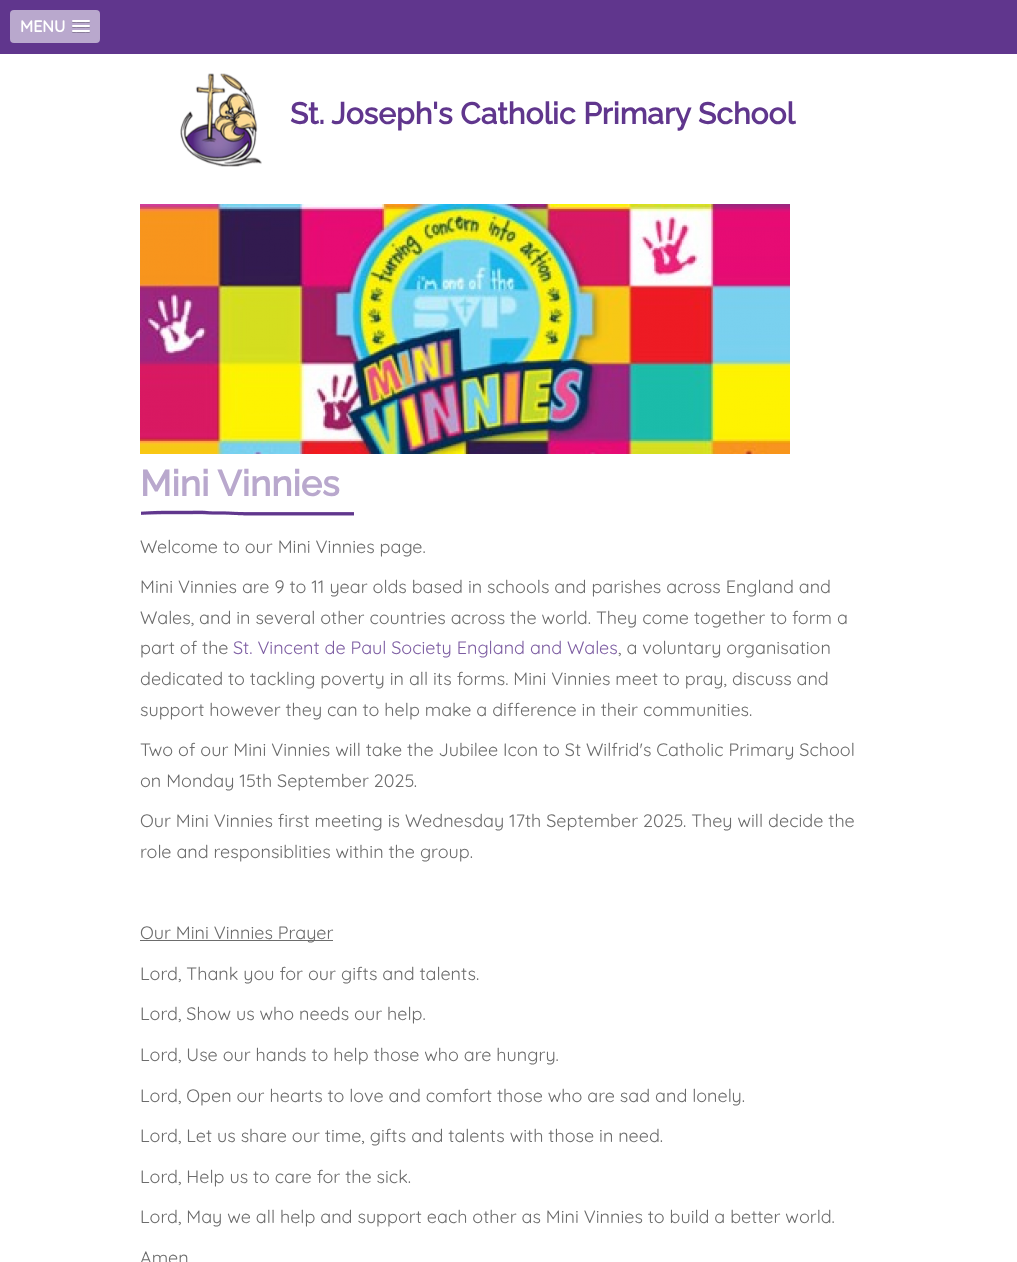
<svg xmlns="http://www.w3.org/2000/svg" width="1017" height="1262">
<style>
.a{font:bold 16px Quicksand;fill:#fff}
.b{font:bold 30px Raleway;fill:#60368d}
.c{font:bold 36px Raleway;fill:#b9a8cd}
.d{font:18px Quicksand;fill:#6c6c6c}
.e{font:18px Quicksand;fill:#7d5da2}
</style>
<rect width="100%" height="100%" fill="#fff"/>
<path fill="#60368d" d="M0 0h1017v54H0z"/>
<rect fill="#b9a8cd" x="10" y="10" width="90" height="33" rx="4"/>
<path fill="#8b7e9a" d="M72 21.5c-1 2 3.5 1.5 3.5 1.5h11c0 0 4.5 .5 3.5-1.5c-1 1-7.5 .5-9 .5c-1.5 0-8 .5-9-.5z"/>
<rect fill="#fff" x="72" y="20" width="18" height="2" rx="1"/>
<path fill="#8b7e9a" d="M72 26.5c-1 2 3.5 1.5 3.5 1.5h11c0 0 4.5 .5 3.5-1.5c-1 1-7.5 .5-9 .5c-1.5 0-8 .5-9-.5z"/>
<rect fill="#fff" x="72" y="25" width="18" height="2" rx="1"/>
<path fill="#8b7e9a" d="M72 31.5c-1 2 3.5 1.5 3.5 1.5h11c0 0 4.5 .5 3.5-1.5c-1 1-7.5 .5-9 .5c-1.5 0-8 .5-9-.5z"/>
<rect fill="#fff" x="72" y="30" width="18" height="2" rx="1"/>
<image href="1.png" x="180" y="73" width="82" height="94"/>
<image href="2.png" x="140" y="204" width="650" height="250"/>
<image href="3.png" x="141" y="510" width="213" height="6"/>
<path fill="#6c6c6c" d="M140 940h193v1H140z"/>
<text class="a" x="20" y="32">MENU</text>
<text class="b" x="290" y="124">St. Joseph's Catholic Primary School</text>
<text class="c" x="140" y="496">Mini Vinnies</text>
<text class="d" x="140" y="553">Welcome to our Mini Vinnies page.</text>
<text class="d" x="140" y="593">Mini Vinnies are 9 to 11 year olds based in schools and parishes across England and</text>
<text class="d" x="140" y="624">Wales, and in several other countries across the world. They come together to form a</text>
<text class="d" x="140" y="654">part of the</text>
<text class="e" x="233" y="654">St. Vincent de Paul Society England and Wales</text>
<text class="d" x="618" y="654">, a voluntary organisation</text>
<text class="d" x="140" y="685">dedicated to tackling poverty in all its forms. Mini Vinnies meet to pray, discuss and</text>
<text class="d" x="140" y="716">support however they can to help make a difference in their communities.</text>
<text class="d" x="140" y="756">Two of our Mini Vinnies will take the Jubilee Icon to St Wilfrid's Catholic Primary School</text>
<text class="d" x="140" y="787">on Monday 15th September 2025.</text>
<text class="d" x="140" y="827">Our Mini Vinnies first meeting is Wednesday 17th September 2025. They will decide the</text>
<text class="d" x="140" y="858">role and responsiblities within the group.</text>
<text class="d" x="140" y="939">Our Mini Vinnies Prayer</text>
<text class="d" x="140" y="980">Lord, Thank you for our gifts and talents.</text>
<text class="d" x="140" y="1020">Lord, Show us who needs our help.</text>
<text class="d" x="140" y="1061">Lord, Use our hands to help those who are hungry.</text>
<text class="d" x="140" y="1102">Lord, Open our hearts to love and comfort those who are sad and lonely.</text>
<text class="d" x="140" y="1142">Lord, Let us share our time, gifts and talents with those in need.</text>
<text class="d" x="140" y="1183">Lord, Help us to care for the sick.</text>
<text class="d" x="140" y="1223">Lord, May we all help and support each other as Mini Vinnies to build a better world.</text>
<text class="d" x="140" y="1264">Amen</text>
</svg>
